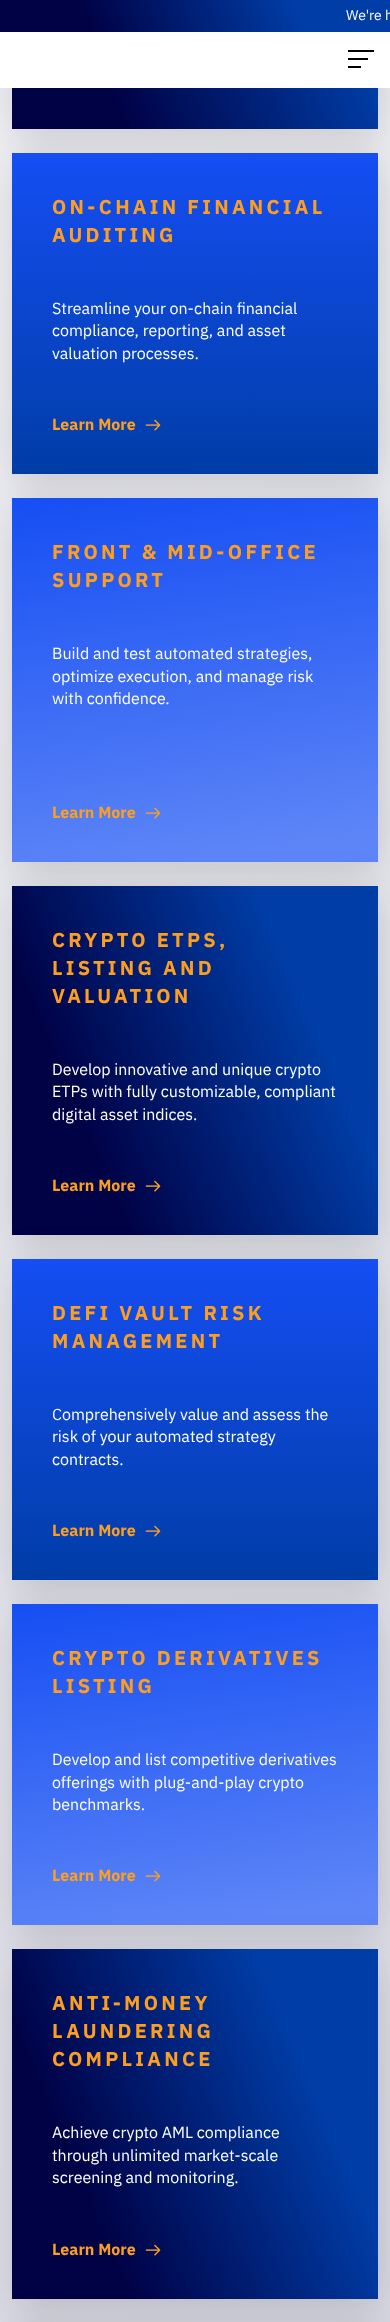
<svg xmlns="http://www.w3.org/2000/svg" width="390" height="2322">
<style>
.a{font:14px IBM Plex Sans;fill:#fff}
.b{font:bold 20px IBM Plex Sans;letter-spacing:3.25px;fill:#fc9e21}
.c{font:16px IBM Plex Sans;fill:#fff}
.d{font:bold 16px IBM Plex Sans;fill:#fc9e21}
</style>
<defs>
<linearGradient id="g1" gradientUnits="userSpaceOnUse" x1="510" y1="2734" x2="-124" y2="-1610"><stop offset="0.02" stop-color="#d8d9e4"/><stop offset="1" stop-color="#fff"/></linearGradient>
<linearGradient id="g2" gradientUnits="userSpaceOnUse" x1="365" y1="-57" x2="25" y2="89"><stop offset="0.24" stop-color="#003da6"/><stop offset="0.77" stop-color="#000246"/></linearGradient>
<linearGradient id="g3" gradientUnits="userSpaceOnUse" x1="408" y1="-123" x2="-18" y2="60"><stop offset="0.24" stop-color="#003da6"/><stop offset="0.77" stop-color="#000246"/></linearGradient>
<linearGradient id="g4" gradientUnits="userSpaceOnUse" x1="195" y1="153" x2="195" y2="474"><stop offset="0" stop-color="#154ef3"/><stop offset="1" stop-color="#003da6"/></linearGradient>
<linearGradient id="g5" gradientUnits="userSpaceOnUse" x1="225" y1="884" x2="165" y2="476"><stop offset="0.07" stop-color="#5d85f7"/><stop offset="1" stop-color="#154ef3"/></linearGradient>
<linearGradient id="g6" gradientUnits="userSpaceOnUse" x1="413" y1="967" x2="-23" y2="1154"><stop offset="0.24" stop-color="#003da6"/><stop offset="0.77" stop-color="#000246"/></linearGradient>
<linearGradient id="g7" gradientUnits="userSpaceOnUse" x1="195" y1="1259" x2="195" y2="1580"><stop offset="0" stop-color="#154ef3"/><stop offset="1" stop-color="#003da6"/></linearGradient>
<linearGradient id="g8" gradientUnits="userSpaceOnUse" x1="222" y1="1948" x2="168" y2="1581"><stop offset="0.07" stop-color="#5d85f7"/><stop offset="1" stop-color="#154ef3"/></linearGradient>
<linearGradient id="g9" gradientUnits="userSpaceOnUse" x1="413" y1="2030" x2="-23" y2="2218"><stop offset="0.24" stop-color="#003da6"/><stop offset="0.77" stop-color="#000246"/></linearGradient>
</defs>
<rect width="100%" height="100%" fill="#fff"/>
<path fill="url(#g1)" d="M0 88h390v2234H0z"/>
<path fill="#00000029" filter="blur(20px)" d="M16 -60h366v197H16z"/>
<path fill="#fff" d="M0 32h390v56H0z"/>
<path fill="url(#g2)" d="M0 0h390v32H0z"/>
<path fill="#000" d="M348 50h26v2H348z"/>
<path fill="#000" d="M348 58h20v2H348z"/>
<path fill="#000" d="M348 66h13v2H348z"/>
<path fill="url(#g3)" d="M12 88h366v41H12z"/>
<path fill="#00000029" filter="blur(20px)" d="M16 161h366v321H16z"/>
<path fill="url(#g4)" d="M12 153h366v321H12z"/>
<image href="1.png" x="145" y="419" width="16" height="12"/>
<path fill="#00000029" filter="blur(20px)" d="M16 506h366v364H16z"/>
<path fill="url(#g5)" d="M12 498h366v364H12z"/>
<image href="2.png" x="145" y="807" width="16" height="12"/>
<path fill="#00000029" filter="blur(20px)" d="M16 894h366v349H16z"/>
<path fill="url(#g6)" d="M12 886h366v349H12z"/>
<image href="3.png" x="145" y="1180" width="16" height="12"/>
<path fill="#00000029" filter="blur(20px)" d="M16 1267h366v321H16z"/>
<path fill="url(#g7)" d="M12 1259h366v321H12z"/>
<image href="1.png" x="145" y="1525" width="16" height="12"/>
<path fill="#00000029" filter="blur(20px)" d="M16 1612h366v321H16z"/>
<path fill="url(#g8)" d="M12 1604h366v321H12z"/>
<image href="4.png" x="145" y="1870" width="16" height="12"/>
<path fill="#00000029" filter="blur(20px)" d="M16 1957h366v350H16z"/>
<path fill="url(#g9)" d="M12 1949h366v350H12z"/>
<image href="5.png" x="145" y="2244" width="16" height="12"/>
<path fill="#00000029" filter="blur(20px)" d="M16 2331h366v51H16z"/>
<text class="a" x="346" y="20">We're h</text>
<text class="b" x="52" y="214">ON-CHAIN FINANCIAL</text>
<text class="b" x="52" y="242">AUDITING</text>
<text class="c" x="52" y="314">Streamline your on-chain financial</text>
<text class="c" x="52" y="336">compliance, reporting, and asset</text>
<text class="c" x="52" y="359">valuation processes.</text>
<text class="d" x="52" y="430">Learn More</text>
<text class="b" x="52" y="559">FRONT &amp; MID-OFFICE</text>
<text class="b" x="52" y="587">SUPPORT</text>
<text class="c" x="52" y="659">Build and test automated strategies,</text>
<text class="c" x="52" y="682">optimize execution, and manage risk</text>
<text class="c" x="52" y="704">with confidence.</text>
<text class="d" x="52" y="818">Learn More</text>
<text class="b" x="52" y="947">CRYPTO ETPS,</text>
<text class="b" x="52" y="975">LISTING AND</text>
<text class="b" x="52" y="1003">VALUATION</text>
<text class="c" x="52" y="1075">Develop innovative and unique crypto</text>
<text class="c" x="52" y="1097">ETPs with fully customizable, compliant</text>
<text class="c" x="52" y="1120">digital asset indices.</text>
<text class="d" x="52" y="1191">Learn More</text>
<text class="b" x="52" y="1320">DEFI VAULT RISK</text>
<text class="b" x="52" y="1348">MANAGEMENT</text>
<text class="c" x="52" y="1420">Comprehensively value and assess the</text>
<text class="c" x="52" y="1442">risk of your automated strategy</text>
<text class="c" x="52" y="1465">contracts.</text>
<text class="d" x="52" y="1536">Learn More</text>
<text class="b" x="52" y="1665">CRYPTO DERIVATIVES</text>
<text class="b" x="52" y="1693">LISTING</text>
<text class="c" x="52" y="1765">Develop and list competitive derivatives</text>
<text class="c" x="52" y="1788">offerings with plug-and-play crypto</text>
<text class="c" x="52" y="1810">benchmarks.</text>
<text class="d" x="52" y="1881">Learn More</text>
<text class="b" x="52" y="2010">ANTI-MONEY</text>
<text class="b" x="52" y="2038">LAUNDERING</text>
<text class="b" x="52" y="2066">COMPLIANCE</text>
<text class="c" x="52" y="2138">Achieve crypto AML compliance</text>
<text class="c" x="52" y="2161">through unlimited market-scale</text>
<text class="c" x="52" y="2183">screening and monitoring.</text>
<text class="d" x="52" y="2255">Learn More</text>
</svg>
